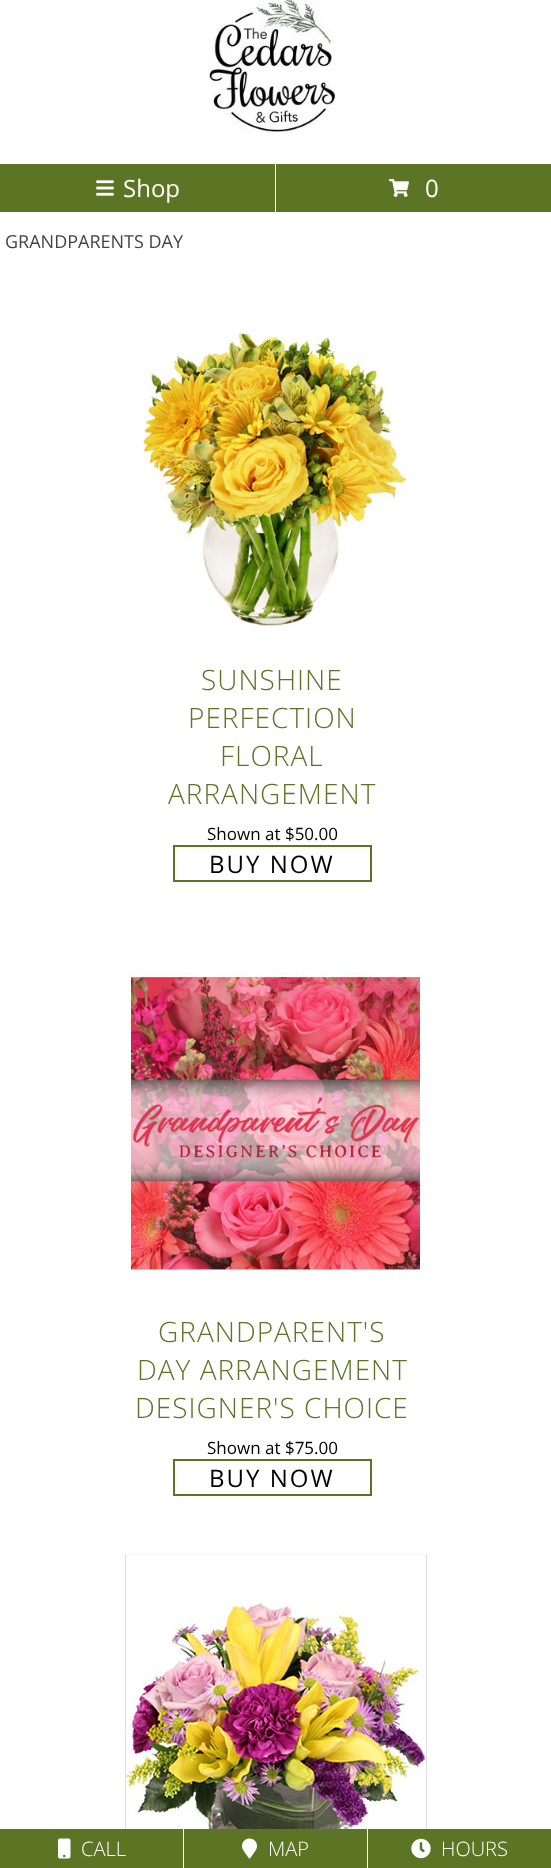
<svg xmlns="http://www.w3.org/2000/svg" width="551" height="1868">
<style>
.a{font:24px Open Sans;fill:#fff}
.b{font:18px Open Sans;fill:#444}
.c{font:300 28px Open Sans;letter-spacing:1px;fill:#5b7524}
.d{font:17px Open Sans;fill:#000}
.e{font:24px Open Sans;letter-spacing:2px;fill:#000}
.f{font:300 20px Open Sans;fill:#fff}
</style>
<rect width="100%" height="100%" fill="#fff"/>
<image href="1.png" x="207" y="0" width="130" height="134"/>
<path fill="#5b7524" d="M0 164h275v48H0z"/>
<image href="2.png" x="96" y="180" width="18" height="16"/>
<path fill="#5b7524" d="M276 164h275v48H276z"/>
<image href="3.png" x="389" y="179" width="20" height="18"/>
<image href="4.png" x="142" y="333" width="268" height="293"/>
<path fill="none" stroke="#5b7524" stroke-width="2" d="M174 846h197v35H174z"/>
<image href="5.png" x="131" y="972" width="289" height="299"/>
<path fill="none" stroke="#5b7524" stroke-width="2" d="M174 1460h197v35H174z"/>
<path fill="#f9f9f9" d="M125 1554h302v1H125z"/>
<path fill="#e2dedd" d="M426 1554h1v275H426z"/>
<path fill="#e2dedd" d="M125 1554h1v275H125z"/>
<image href="6.png" x="126" y="1603" width="300" height="226"/>
<path fill="#5b7524" d="M0 1829h183v39H0z"/>
<image href="7.png" x="58" y="1838" width="13" height="21"/>
<path fill="#5b7524" d="M184 1829h183v39H184z"/>
<image href="8.png" x="242" y="1838" width="15" height="21"/>
<path fill="#5b7524" d="M368 1829h183v39H368z"/>
<image href="9.png" x="411" y="1838" width="20" height="21"/>
<text class="a" x="123" y="197">Shop</text>
<text class="a" x="425" y="197">0</text>
<text class="b" x="5" y="248">GRANDPARENTS DAY</text>
<text class="c" x="201" y="690">SUNSHINE</text>
<text class="c" x="188" y="728">PERFECTION</text>
<text class="c" x="220" y="766">FLORAL</text>
<text class="c" x="168" y="804">ARRANGEMENT</text>
<text class="d" x="207" y="840">Shown at $50.00</text>
<text class="e" x="209" y="873">BUY NOW</text>
<text class="c" x="158" y="1342">GRANDPARENT'S</text>
<text class="c" x="137" y="1380">DAY ARRANGEMENT</text>
<text class="c" x="135" y="1418">DESIGNER'S CHOICE</text>
<text class="d" x="207" y="1454">Shown at $75.00</text>
<text class="e" x="209" y="1487">BUY NOW</text>
<text class="f" x="81" y="1856">CALL</text>
<text class="f" x="268" y="1856">MAP</text>
<text class="f" x="441" y="1856">HOURS</text>
</svg>
